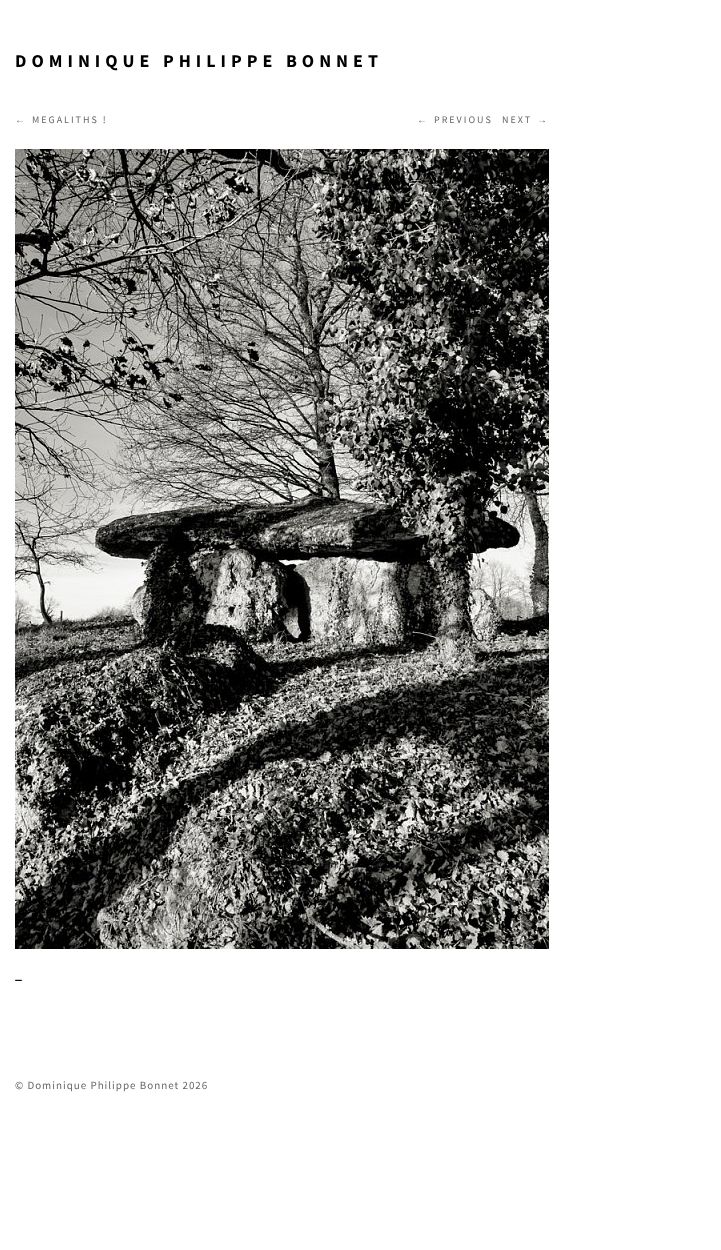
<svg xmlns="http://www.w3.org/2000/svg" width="721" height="1250">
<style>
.a{font:bold 18px Source Sans Pro;letter-spacing:5px;fill:#000}
.b{font:10px Liberation Sans;letter-spacing:2px;fill:#666}
.c{font:10px Source Sans Pro;letter-spacing:2px;fill:#666}
.d{font:bold 14px Source Sans Pro;letter-spacing:1px;fill:#000}
.e{font:11px Source Sans Pro;letter-spacing:1px;fill:#666}
</style>
<rect width="100%" height="100%" fill="#fff"/>
<image href="1.png" x="15" y="149" width="534" height="800"/>
<text class="a" x="15" y="67">DOMINIQUE PHILIPPE BONNET</text>
<text class="b" x="15" y="123">←</text>
<text class="c" x="32" y="123">MEGALITHS !</text>
<text class="b" x="417" y="123">←</text>
<text class="c" x="434" y="123">PREVIOUS</text>
<text class="c" x="502" y="123">NEXT</text>
<text class="b" x="537" y="123">→</text>
<text class="d" x="15" y="979">_</text>
<text class="e" x="15" y="1089">© Dominique Philippe Bonnet 2026</text>
</svg>
